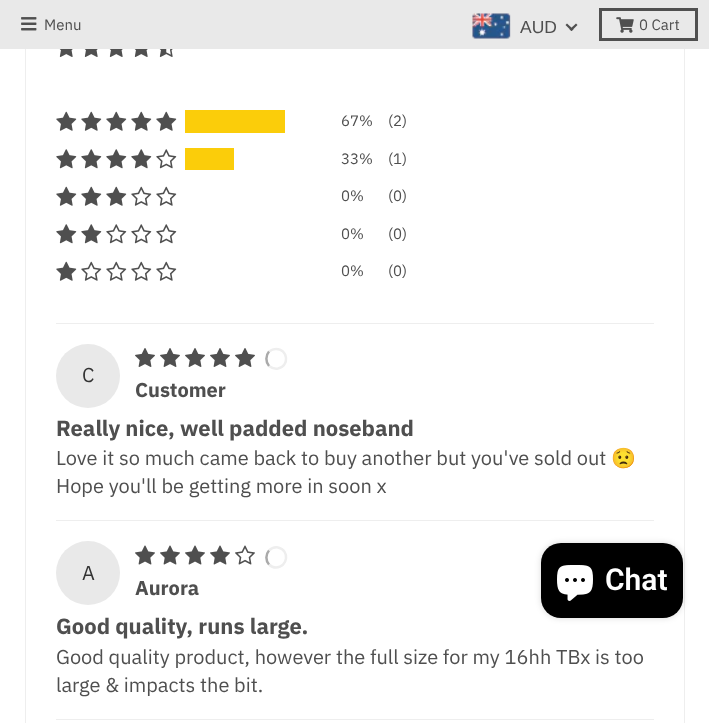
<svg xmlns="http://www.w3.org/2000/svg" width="709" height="723">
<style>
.a{font:15px IBM Plex Sans;fill:#4f4f4f}
.b{font:17.5px Liberation Sans;fill:#4f4f4f}
.c{font:20px IBM Plex Sans;fill:#333}
.d{font:bold 20px IBM Plex Sans;fill:#4f4f4f}
.e{font:bold 22px IBM Plex Sans;fill:#4f4f4f}
.f{font:20px IBM Plex Sans;fill:#4f4f4f}
.g{font:20px Noto Color Emoji;fill:#4f4f4f}
.h{font:600 30px Roboto;fill:#fff}
</style>
<rect width="100%" height="100%" fill="#fff"/>
<path fill="none" stroke="#eee" d="M25.5 -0.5h659v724H25.5z"/>
<path fill="#e9e9e9" d="M0 0h709v49H0z"/>
<image href="1.png" x="21" y="17" width="16" height="14"/>
<image href="2.png" x="472" y="13" width="39" height="26"/>
<path fill="#505050" d="M576 23.5l1.5 1.5l-6 6l-2-1.5z"/>
<path fill="#505050" d="M567 23.5l6.5 6l-2 1.5l-6-6z"/>
<path fill="none" stroke="#505050" stroke-width="3" d="M600.5 9.5h96v30H600.5z"/>
<image href="3.png" x="616" y="17" width="18" height="16"/>
<image href="4.png" x="59" y="49" width="14" height="8"/>
<image href="4.png" x="84" y="49" width="14" height="8"/>
<image href="4.png" x="109" y="49" width="14" height="8"/>
<image href="4.png" x="134" y="49" width="14" height="8"/>
<image href="5.png" x="159" y="49" width="14" height="8"/>
<image href="6.png" x="56" y="111" width="21" height="20"/>
<image href="6.png" x="81" y="111" width="21" height="20"/>
<image href="6.png" x="106" y="111" width="21" height="20"/>
<image href="6.png" x="131" y="111" width="21" height="20"/>
<image href="6.png" x="156" y="111" width="21" height="20"/>
<path fill="#fbcd0a" d="M185 110h100v23H185z"/>
<image href="7.png" x="56" y="149" width="21" height="20"/>
<image href="7.png" x="81" y="149" width="21" height="20"/>
<image href="7.png" x="106" y="149" width="21" height="20"/>
<image href="7.png" x="131" y="149" width="21" height="20"/>
<image href="8.png" x="156" y="149" width="21" height="20"/>
<path fill="#fbcd0a" d="M185 148h49v22H185z"/>
<image href="6.png" x="56" y="186" width="21" height="20"/>
<image href="6.png" x="81" y="186" width="21" height="20"/>
<image href="6.png" x="106" y="186" width="21" height="20"/>
<image href="9.png" x="131" y="186" width="21" height="20"/>
<image href="9.png" x="156" y="186" width="21" height="20"/>
<image href="7.png" x="56" y="224" width="21" height="20"/>
<image href="7.png" x="81" y="224" width="21" height="20"/>
<image href="8.png" x="106" y="224" width="21" height="20"/>
<image href="8.png" x="131" y="224" width="21" height="20"/>
<image href="8.png" x="156" y="224" width="21" height="20"/>
<image href="6.png" x="56" y="261" width="21" height="20"/>
<image href="9.png" x="81" y="261" width="21" height="20"/>
<image href="9.png" x="106" y="261" width="21" height="20"/>
<image href="9.png" x="131" y="261" width="21" height="20"/>
<image href="9.png" x="156" y="261" width="21" height="20"/>
<path fill="#eee" d="M56 323h598v1H56z"/>
<image href="10.png" x="135" y="348" width="20" height="19"/>
<image href="10.png" x="160" y="348" width="20" height="19"/>
<image href="10.png" x="185" y="348" width="20" height="19"/>
<image href="10.png" x="210" y="348" width="20" height="19"/>
<image href="10.png" x="235" y="348" width="20" height="19"/>
<path fill="none" stroke="#eee" stroke-width="2.5" d="M269 351.5c2-1.5 4.5-2.5 7-2.5c12 0 14 17 2 19.5c-3 .5-6.5-.5-9-2.5"/>
<path fill="none" stroke="#aaa" stroke-width="2.5" d="M269 366c-3.5-4-3.5-10.5 0-14.5"/>
<circle fill="#e9e9e9" cx="88" cy="376" r="32"/>
<path fill="#eee" d="M56 520h598v1H56z"/>
<image href="11.png" x="135" y="545" width="20" height="20"/>
<image href="11.png" x="160" y="545" width="20" height="20"/>
<image href="11.png" x="185" y="545" width="20" height="20"/>
<image href="11.png" x="210" y="545" width="20" height="20"/>
<image href="12.png" x="235" y="545" width="20" height="20"/>
<path fill="none" stroke="#eee" stroke-width="2.5" d="M269 550.5c2.5-2.5 6-3.5 9-3c12 2.5 10 20-2 20c-2.5 0-5-1-7-3"/>
<path fill="none" stroke="#aaa" stroke-width="2.5" d="M269 564.5c-3.5-4-3.5-10 0-14"/>
<circle fill="#e9e9e9" cx="88" cy="573" r="32"/>
<path fill="#eee" d="M56 719h598v1H56z"/>
<rect fill="#00000026" filter="blur(3px)" x="541" y="543" width="142" height="75" rx="20"/>
<rect fill="#000" x="541" y="543" width="142" height="75" rx="20"/>
<image href="13.png" x="557" y="565" width="36" height="36"/>
<text class="a" x="44" y="30">Menu</text>
<text class="b" x="520" y="33">AUD</text>
<text class="a" x="639" y="30">0 Cart</text>
<text class="a" x="341" y="126">67%</text>
<text class="a" x="388" y="126">(2)</text>
<text class="a" x="341" y="164">33%</text>
<text class="a" x="388" y="164">(1)</text>
<text class="a" x="341" y="201">0%</text>
<text class="a" x="388" y="201">(0)</text>
<text class="a" x="341" y="239">0%</text>
<text class="a" x="388" y="239">(0)</text>
<text class="a" x="341" y="276">0%</text>
<text class="a" x="388" y="276">(0)</text>
<text class="c" x="82" y="382">C</text>
<text class="d" x="135" y="397">Customer</text>
<text class="e" x="56" y="436">Really nice, well padded noseband</text>
<text class="f" x="56" y="465">Love it so much came back to buy another but you've sold out</text>
<text class="g" x="611" y="465">😟</text>
<text class="f" x="56" y="493">Hope you'll be getting more in soon x</text>
<text class="c" x="82" y="580">A</text>
<text class="d" x="135" y="595">Aurora</text>
<text class="e" x="56" y="634">Good quality, runs large.</text>
<text class="f" x="56" y="664">Good quality product, however the full size for my 16hh TBx is too</text>
<text class="f" x="56" y="692">large &amp; impacts the bit.</text>
<text class="h" x="605" y="590">Chat</text>
</svg>
